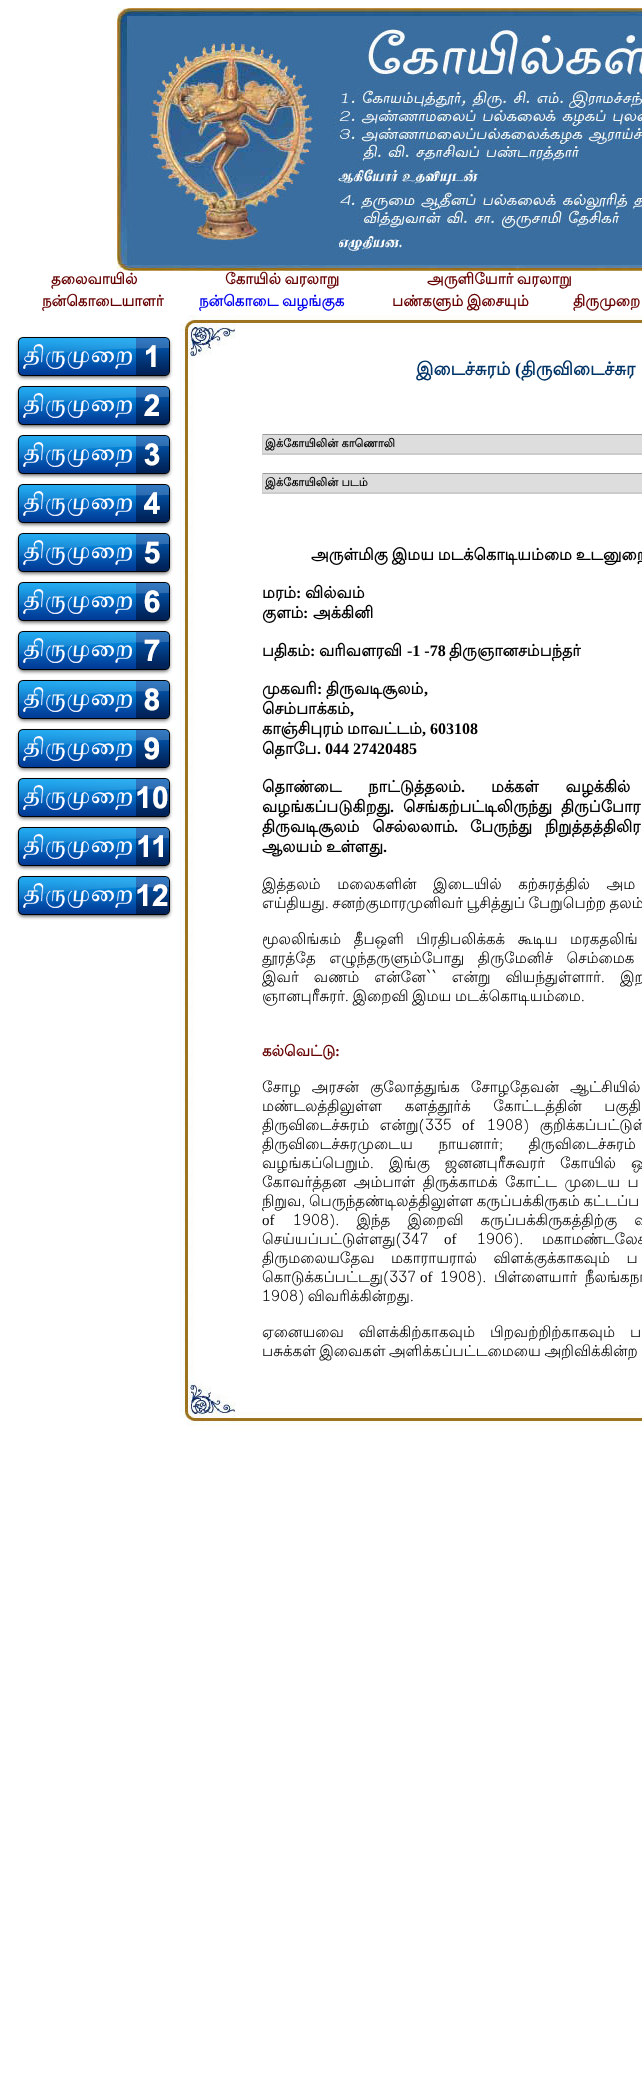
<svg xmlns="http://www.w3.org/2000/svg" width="642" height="2080">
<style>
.a{font:bold 15px Lohit Tamil;fill:#600}
.b{font:bold 15px Lohit Tamil;fill:#00e}
.c{font:bold 18px Lohit Tamil;fill:#036}
.d{font:bold 18px Liberation Serif;fill:#036}
.e{font:bold 11.25px Lohit Tamil;fill:#000}
.f{font:bold 16px Lohit Tamil;fill:#000}
.g{font:bold 16px Liberation Serif;fill:#000}
.h{font:15px Lohit Tamil;fill:#000}
.i{font:bold 15px Liberation Serif;fill:#600}
.j{font:15px Liberation Serif;fill:#000}
</style>
<rect width="100%" height="100%" fill="#fff"/>
<image href="1.png" x="117" y="8" width="525" height="263"/>
<image href="2.png" x="15" y="336" width="158" height="45"/>
<image href="3.png" x="15" y="385" width="158" height="45"/>
<image href="4.png" x="15" y="434" width="158" height="45"/>
<image href="5.png" x="15" y="483" width="158" height="45"/>
<image href="6.png" x="15" y="532" width="158" height="45"/>
<image href="7.png" x="15" y="581" width="158" height="45"/>
<image href="8.png" x="15" y="630" width="158" height="45"/>
<image href="9.png" x="15" y="679" width="158" height="45"/>
<image href="10.png" x="15" y="728" width="158" height="45"/>
<image href="11.png" x="15" y="777" width="158" height="45"/>
<image href="12.png" x="15" y="826" width="158" height="45"/>
<image href="13.png" x="15" y="875" width="158" height="45"/>
<image href="14.png" x="180" y="315" width="462" height="43"/>
<image href="15.png" x="180" y="358" width="14" height="1020"/>
<path fill="#999" d="M262 434h380v1H262z"/>
<path fill="#ccc" d="M262 454h380v1H262z"/>
<path fill="#ccc" d="M262 434h1v21H262z"/>
<path fill="#ddd" d="M263 435h379v18H263z"/>
<path fill="#ccc" d="M263 453h379v1H263z"/>
<path fill="#999" d="M262 473h380v1H262z"/>
<path fill="#ccc" d="M262 493h380v1H262z"/>
<path fill="#ccc" d="M262 473h1v21H262z"/>
<path fill="#ddd" d="M263 474h379v18H263z"/>
<path fill="#ccc" d="M263 492h379v1H263z"/>
<image href="16.png" x="180" y="1378" width="462" height="48"/>
<text class="a" x="51" y="284">தலைவாயில்</text>
<text class="a" x="225" y="284" word-spacing="-1">கோயில் வரலாறு</text>
<text class="a" x="427" y="284" word-spacing="-1">அருளியோர் வரலாறு</text>
<text class="a" x="42" y="306">நன்கொடையாளர்</text>
<text class="b" x="199" y="306" word-spacing="-1">நன்கொடை வழங்குக</text>
<text class="a" x="392" y="306" word-spacing="-1">பண்களும் இசையும்</text>
<text class="a" x="573" y="306" word-spacing="-1">திருமுறை</text>
<text class="c" x="416" y="375">இடைச்சுரம்</text>
<text class="d" x="515" y="375">(</text>
<text class="c" x="521" y="375">திருவிடைச்சுர</text>
<text class="e" x="265" y="447">இக்கோயிலின் காணொலி</text>
<text class="e" x="265" y="486">இக்கோயிலின் படம்</text>
<text class="f" x="311" y="560" word-spacing="-1">அருள்மிகு இமய மடக்கொடியம்மை உடனுறை</text>
<text class="f" x="262" y="598">மரம்</text>
<text class="g" x="296" y="598">:</text>
<text class="f" x="305" y="598">வில்வம்</text>
<text class="f" x="262" y="618">குளம்</text>
<text class="g" x="303" y="618">:</text>
<text class="f" x="313" y="618">அக்கினி</text>
<text class="f" x="262" y="656">பதிகம்</text>
<text class="g" x="310" y="656">:</text>
<text class="f" x="319" y="656">வரிவளரவி</text>
<text class="g" x="407" y="656">-1 -78</text>
<text class="f" x="449" y="656">திருஞானசம்பந்தர்</text>
<text class="f" x="262" y="694">முகவரி</text>
<text class="g" x="317" y="694">:</text>
<text class="f" x="326" y="694">திருவடிசூலம்</text>
<text class="g" x="424" y="694">,</text>
<text class="f" x="262" y="714">செம்பாக்கம்</text>
<text class="g" x="350" y="714">,</text>
<text class="f" x="262" y="734">காஞ்சிபுரம்</text>
<text class="f" x="347" y="734">மாவட்டம்</text>
<text class="g" x="422" y="734">, 603108</text>
<text class="f" x="262" y="754">தொபே</text>
<text class="g" x="317" y="754">. 044 27420485</text>
<text class="f" x="262" y="792" word-spacing="22">தொண்டை நாட்டுத்தலம்</text>
<text class="g" x="461" y="792">.</text>
<text class="f" x="491" y="792" word-spacing="22">மக்கள் வழக்கில்</text>
<text class="f" x="262" y="812">வழங்கப்படுகிறது</text>
<text class="g" x="390" y="812">.</text>
<text class="f" x="403" y="812" word-spacing="4">செங்கற்பட்டிலிருந்து திருப்போர</text>
<text class="f" x="262" y="832" word-spacing="8">திருவடிசூலம் செல்லலாம்</text>
<text class="g" x="454" y="832">.</text>
<text class="f" x="470" y="832" word-spacing="8">பேருந்து நிறுத்தத்திலிர</text>
<text class="f" x="262" y="852" word-spacing="-1">ஆலயம் உள்ளது</text>
<text class="g" x="383" y="852">.</text>
<text class="h" x="262" y="889" word-spacing="12">இத்தலம் மலைகளின் இடையில் கற்சுரத்தில் அம</text>
<text class="h" x="262" y="908" word-spacing="-1">எய்தியது. சனற்குமாரமுனிவர் பூசித்துப் பேறுபெற்ற தலம்</text>
<text class="h" x="262" y="944" word-spacing="8">மூலலிங்கம் தீபஒளி பிரதிபலிக்கக் கூடிய மரகதலிங்</text>
<text class="h" x="262" y="963" word-spacing="9">தூரத்தே எழுந்தருளும்போது திருமேனிச் செம்மைக</text>
<text class="h" x="262" y="982" word-spacing="10.5">இவர் வணம் என்னே`` என்று வியந்துள்ளார். இற</text>
<text class="h" x="262" y="1001" word-spacing="-1">ஞானபுரீசுரர். இறைவி இமய மடக்கொடியம்மை.</text>
<text class="a" x="262" y="1056">கல்வெட்டு</text>
<text class="i" x="335" y="1056">:</text>
<text class="h" x="262" y="1092" word-spacing="6.5">சோழ அரசன் குலோத்துங்க சோழதேவன் ஆட்சியில்</text>
<text class="h" x="262" y="1111" word-spacing="18">மண்டலத்திலுள்ள களத்தூர்க் கோட்டத்தின் பகுதி</text>
<text class="h" x="262" y="1130" word-spacing="6">திருவிடைச்சுரம் என்று(335</text>
<text class="j" x="462" y="1130">of</text>
<text class="h" x="487" y="1130" word-spacing="6">1908) குறிக்கப்பட்டுள்</text>
<text class="h" x="262" y="1149" word-spacing="21">திருவிடைச்சுரமுடைய நாயனார்; திருவிடைச்சுரம்</text>
<text class="h" x="262" y="1168" word-spacing="10.5">வழங்கப்பெறும். இங்கு ஜனனபுரீசுவரர் கோயில் ஒ</text>
<text class="h" x="262" y="1187" word-spacing="3">கோவர்த்தன அம்பாள் திருக்காமக் கோட்ட முடைய ப</text>
<text class="h" x="262" y="1206" word-spacing="-1">நிறுவ, பெருந்தண்டிலத்திலுள்ள கருப்பக்கிருகம் கட்டப்ப</text>
<text class="j" x="262" y="1225">of</text>
<text class="h" x="293" y="1225" word-spacing="12.5">1908). இந்த இறைவி கருப்பக்கிருகத்திற்கு வ</text>
<text class="h" x="262" y="1244">செய்யப்பட்டுள்ளது(347</text>
<text class="j" x="444" y="1244">of</text>
<text class="h" x="477" y="1244" word-spacing="14">1906). மகாமண்டலேச</text>
<text class="h" x="262" y="1263" word-spacing="12">திருமலையதேவ மகாராயரால் விளக்குக்காகவும் ப</text>
<text class="h" x="262" y="1282">கொடுக்கப்பட்டது(337</text>
<text class="j" x="420" y="1282">of</text>
<text class="h" x="440" y="1282" word-spacing="3">1908). பிள்ளையார் நீலங்கநா</text>
<text class="h" x="262" y="1301" word-spacing="-1">1908) விவரிக்கின்றது.</text>
<text class="h" x="262" y="1337" word-spacing="10.5">ஏனையவை விளக்கிற்காகவும் பிறவற்றிற்காகவும் ப</text>
<text class="h" x="262" y="1356" word-spacing="-1">பசுக்கள் இவைகள் அளிக்கப்பட்டமையை அறிவிக்கின்ற</text>
</svg>
